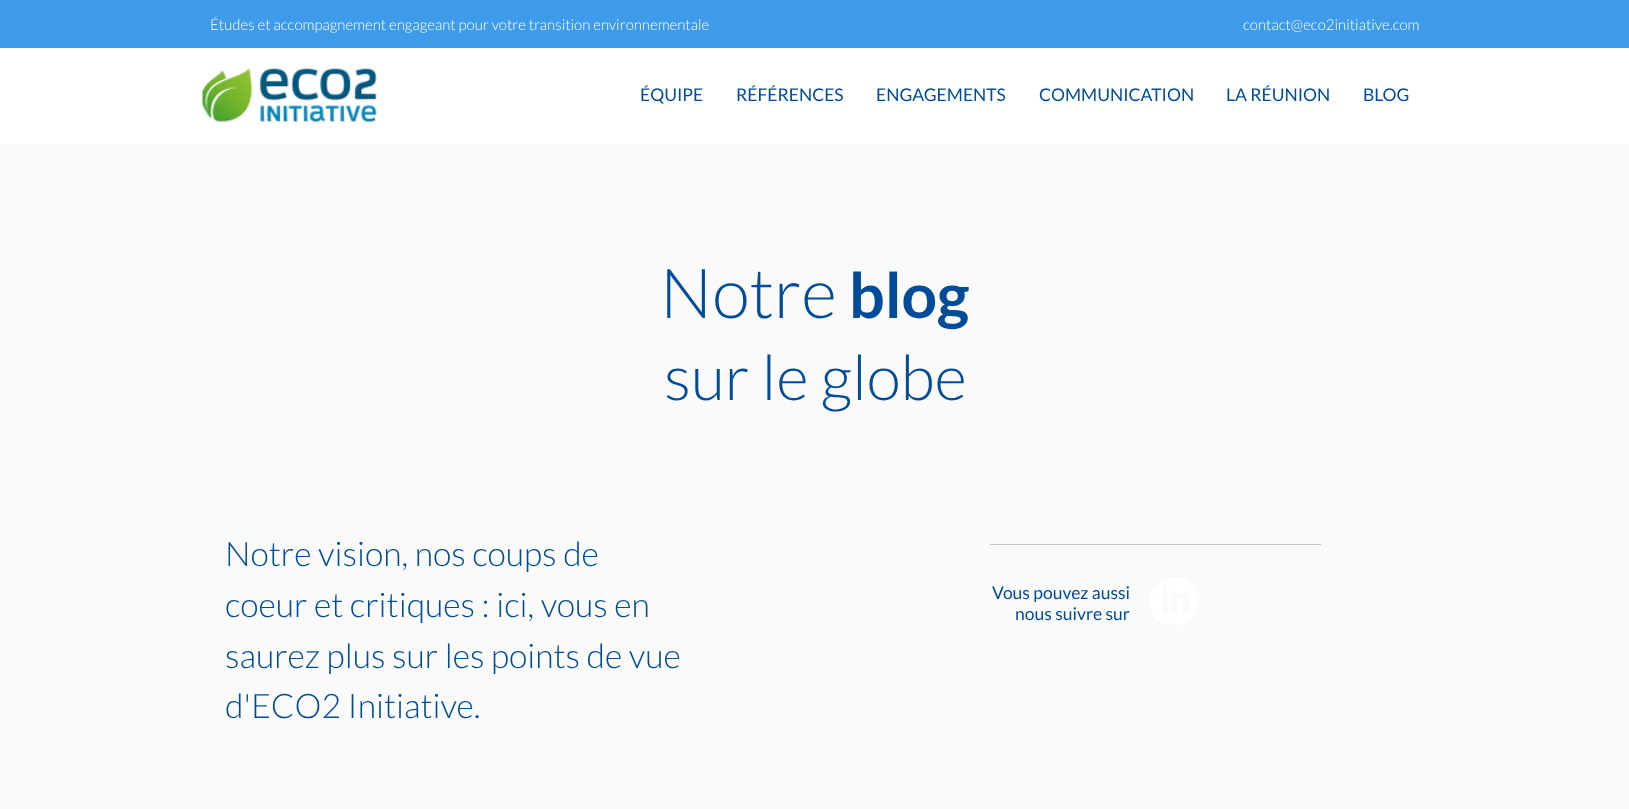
<svg xmlns="http://www.w3.org/2000/svg" width="1629" height="809">
<style>
.a{font:300 15px Lato;fill:#fff}
.b{font:17.5px Lato;fill:#004c99}
.c{font:300 69px Lato;fill:#004c99}
.d{font:bold 62.5px Lato;fill:#004c99}
.e{font:300 62.5px Lato;fill:#004c99}
.f{font:300 33.75px 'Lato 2';fill:#004c99}
</style>
<rect width="100%" height="100%" fill="#fff"/>
<path fill="#3d9be9" d="M0 0h1629v48H0z"/>
<image href="1.png" x="202" y="68" width="175" height="55"/>
<path fill="#fafafa" d="M0 144h1629v665H0z"/>
<path fill="#c5c5c4" d="M990 544h331v1H990z"/>
<image href="2.png" x="1150" y="578" width="47" height="47"/>
<text class="a" x="210" y="30">Études et accompagnement engageant pour votre transition environnementale</text>
<text class="a" x="1243" y="30">contact@eco2initiative.com</text>
<text class="b" x="640" y="101">ÉQUIPE</text>
<text class="b" x="736" y="101">RÉFÉRENCES</text>
<text class="b" x="876" y="101">ENGAGEMENTS</text>
<text class="b" x="1039" y="101">COMMUNICATION</text>
<text class="b" x="1226" y="101">LA RÉUNION</text>
<text class="b" x="1363" y="101">BLOG</text>
<text class="c" x="660" y="318">Notre</text>
<text class="d" x="849" y="318">blog</text>
<text class="e" x="664" y="400">sur le globe</text>
<text class="f" x="225" y="566">Notre vision, nos coups de</text>
<text class="f" x="225" y="617">coeur et critiques : ici, vous en</text>
<text class="f" x="225" y="668">saurez plus sur les points de vue</text>
<text class="f" x="225" y="718">d'ECO2 Initiative.</text>
<text class="b" x="992" y="599">Vous pouvez aussi</text>
<text class="b" x="1015" y="620">nous suivre sur</text>
</svg>
